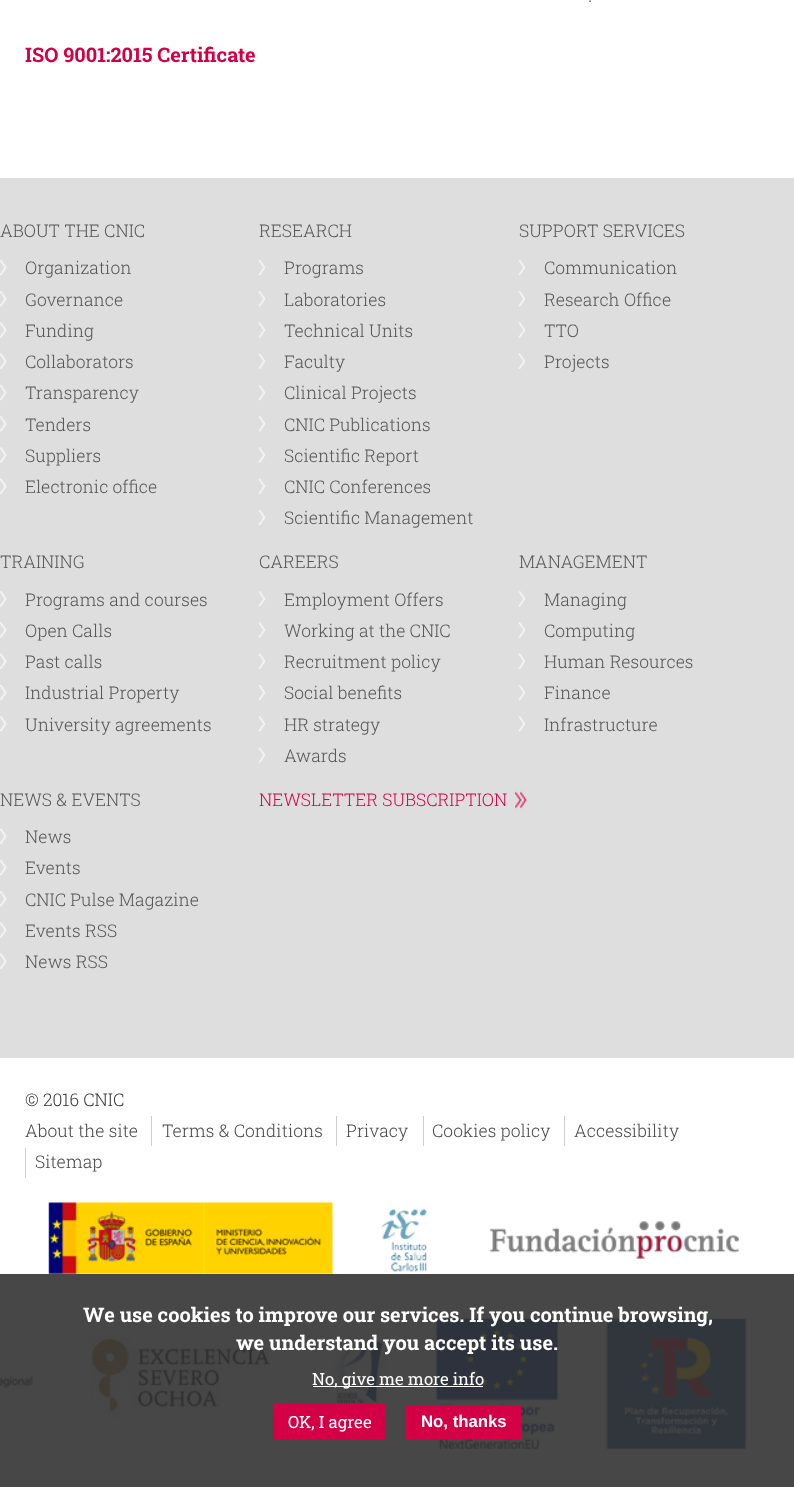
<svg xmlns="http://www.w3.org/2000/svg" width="794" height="1487">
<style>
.a{font:300 20px Roboto Slab;fill:#484848}
.b{font:bold 20px Roboto Slab;fill:#d40046}
.c{font:300 17.5px Roboto Slab;fill:#565656}
.d{font:300 17.5px Roboto Slab;fill:#d40046}
.e{font:300 17.5px Roboto Slab;fill:#333}
.f{font:300 17.5px Roboto Slab;fill:#484848}
.g{font:bold 20px Roboto Slab;fill:#fff}
.h{font:16.75px Roboto Slab;fill:#fff}
.i{font:bold 16.75px Liberation Sans;fill:#fff}
</style>
<rect width="100%" height="100%" fill="#fff"/>
<path fill="#474747" d="M0 1274h794v213H0z"/>
<path fill="#dedede" d="M0 178h794v880H0z"/>
<image href="1.png" x="0" y="259" width="7" height="17"/>
<image href="2.png" x="0" y="291" width="7" height="16"/>
<image href="3.png" x="0" y="322" width="7" height="16"/>
<image href="4.png" x="0" y="353" width="7" height="16"/>
<image href="1.png" x="0" y="384" width="7" height="17"/>
<image href="2.png" x="0" y="416" width="7" height="16"/>
<image href="3.png" x="0" y="447" width="7" height="16"/>
<image href="4.png" x="0" y="478" width="7" height="16"/>
<image href="5.png" x="258" y="260" width="7" height="16"/>
<image href="6.png" x="258" y="291" width="7" height="16"/>
<image href="7.png" x="258" y="322" width="7" height="16"/>
<image href="8.png" x="258" y="353" width="7" height="16"/>
<image href="5.png" x="258" y="385" width="7" height="16"/>
<image href="6.png" x="258" y="416" width="7" height="16"/>
<image href="7.png" x="258" y="447" width="7" height="16"/>
<image href="8.png" x="258" y="478" width="7" height="16"/>
<image href="5.png" x="258" y="510" width="7" height="16"/>
<image href="9.png" x="518" y="260" width="7" height="16"/>
<image href="10.png" x="518" y="291" width="7" height="16"/>
<image href="11.png" x="518" y="322" width="7" height="16"/>
<image href="12.png" x="518" y="353" width="7" height="16"/>
<image href="2.png" x="0" y="591" width="7" height="16"/>
<image href="3.png" x="0" y="622" width="7" height="16"/>
<image href="4.png" x="0" y="653" width="7" height="16"/>
<image href="1.png" x="0" y="684" width="7" height="17"/>
<image href="2.png" x="0" y="716" width="7" height="16"/>
<image href="6.png" x="258" y="591" width="7" height="16"/>
<image href="7.png" x="258" y="622" width="7" height="16"/>
<image href="8.png" x="258" y="653" width="7" height="16"/>
<image href="5.png" x="258" y="685" width="7" height="16"/>
<image href="6.png" x="258" y="716" width="7" height="16"/>
<image href="7.png" x="258" y="747" width="7" height="16"/>
<image href="10.png" x="518" y="591" width="7" height="16"/>
<image href="11.png" x="518" y="622" width="7" height="16"/>
<image href="12.png" x="518" y="653" width="7" height="16"/>
<image href="9.png" x="518" y="685" width="7" height="16"/>
<image href="10.png" x="518" y="716" width="7" height="16"/>
<image href="4.png" x="0" y="828" width="7" height="16"/>
<image href="1.png" x="0" y="859" width="7" height="17"/>
<image href="2.png" x="0" y="891" width="7" height="16"/>
<image href="3.png" x="0" y="922" width="7" height="16"/>
<image href="4.png" x="0" y="953" width="7" height="16"/>
<image href="13.png" x="515" y="791" width="12" height="18"/>
<path fill="#cfcfcf" d="M151 1116h1v30H151z"/>
<path fill="#cfcfcf" d="M336 1116h1v30H336z"/>
<path fill="#cfcfcf" d="M423 1116h1v30H423z"/>
<path fill="#cfcfcf" d="M564 1116h1v30H564z"/>
<path fill="#cfcfcf" d="M25 1148h1v30H25z"/>
<image href="14.png" x="48" y="1202" width="285" height="72"/>
<image href="15.png" x="381" y="1208" width="46" height="64"/>
<image href="16.png" x="489" y="1221" width="250" height="38"/>
<image href="17.png" x="0" y="1376" width="33" height="12"/>
<image href="18.png" x="90" y="1337" width="180" height="81"/>
<image href="19.png" x="332" y="1337" width="54" height="66"/>
<image href="20.png" x="436" y="1318" width="123" height="131"/>
<image href="21.png" x="606" y="1318" width="141" height="131"/>
<path fill="#fff" d="M313 1386h170v1H313z"/>
<path fill="#d40046" d="M274 1403h112v37H274z"/>
<path fill="#d40046" d="M406 1405h115v34H406z"/>
<text class="a" x="588" y="2">.</text>
<text class="b" x="25" y="62">ISO 9001:2015 Certificate</text>
<text class="c" x="0" y="237">ABOUT THE CNIC</text>
<text class="c" x="25" y="274">Organization</text>
<text class="c" x="25" y="306">Governance</text>
<text class="c" x="25" y="337">Funding</text>
<text class="c" x="25" y="368">Collaborators</text>
<text class="c" x="25" y="399">Transparency</text>
<text class="c" x="25" y="431">Tenders</text>
<text class="c" x="25" y="462">Suppliers</text>
<text class="c" x="25" y="493">Electronic office</text>
<text class="c" x="259" y="237">RESEARCH</text>
<text class="c" x="284" y="274">Programs</text>
<text class="c" x="284" y="306">Laboratories</text>
<text class="c" x="284" y="337">Technical Units</text>
<text class="c" x="284" y="368">Faculty</text>
<text class="c" x="284" y="399">Clinical Projects</text>
<text class="c" x="284" y="431">CNIC Publications</text>
<text class="c" x="284" y="462">Scientific Report</text>
<text class="c" x="284" y="493">CNIC Conferences</text>
<text class="c" x="284" y="524">Scientific Management</text>
<text class="c" x="519" y="237">SUPPORT SERVICES</text>
<text class="c" x="544" y="274">Communication</text>
<text class="c" x="544" y="306">Research Office</text>
<text class="c" x="544" y="337">TTO</text>
<text class="c" x="544" y="368">Projects</text>
<text class="c" x="0" y="568">TRAINING</text>
<text class="c" x="25" y="606">Programs and courses</text>
<text class="c" x="25" y="637">Open Calls</text>
<text class="c" x="25" y="668">Past calls</text>
<text class="c" x="25" y="699">Industrial Property</text>
<text class="c" x="25" y="731">University agreements</text>
<text class="c" x="259" y="568">CAREERS</text>
<text class="c" x="284" y="606">Employment Offers</text>
<text class="c" x="284" y="637">Working at the CNIC</text>
<text class="c" x="284" y="668">Recruitment policy</text>
<text class="c" x="284" y="699">Social benefits</text>
<text class="c" x="284" y="731">HR strategy</text>
<text class="c" x="284" y="762">Awards</text>
<text class="c" x="519" y="568">MANAGEMENT</text>
<text class="c" x="544" y="606">Managing</text>
<text class="c" x="544" y="637">Computing</text>
<text class="c" x="544" y="668">Human Resources</text>
<text class="c" x="544" y="699">Finance</text>
<text class="c" x="544" y="731">Infrastructure</text>
<text class="c" x="0" y="806">NEWS &amp; EVENTS</text>
<text class="c" x="25" y="843">News</text>
<text class="c" x="25" y="874">Events</text>
<text class="c" x="25" y="906">CNIC Pulse Magazine</text>
<text class="c" x="25" y="937">Events RSS</text>
<text class="c" x="25" y="968">News RSS</text>
<text class="d" x="259" y="806">NEWSLETTER SUBSCRIPTION</text>
<text class="e" x="25" y="1106">© 2016 CNIC</text>
<text class="f" x="25" y="1137">About the site</text>
<text class="f" x="162" y="1137">Terms &amp; Conditions</text>
<text class="f" x="346" y="1137">Privacy</text>
<text class="f" x="432" y="1137">Cookies policy</text>
<text class="f" x="574" y="1137">Accessibility</text>
<text class="f" x="35" y="1168">Sitemap</text>
<text class="g" x="83" y="1322">We use cookies to improve our services. If you continue browsing,</text>
<text class="g" x="236" y="1350">we understand you accept its use.</text>
<text class="h" x="312" y="1385">No, give me more info</text>
<text class="h" x="288" y="1428">OK, I agree</text>
<text class="i" x="421" y="1427">No, thanks</text>
</svg>
